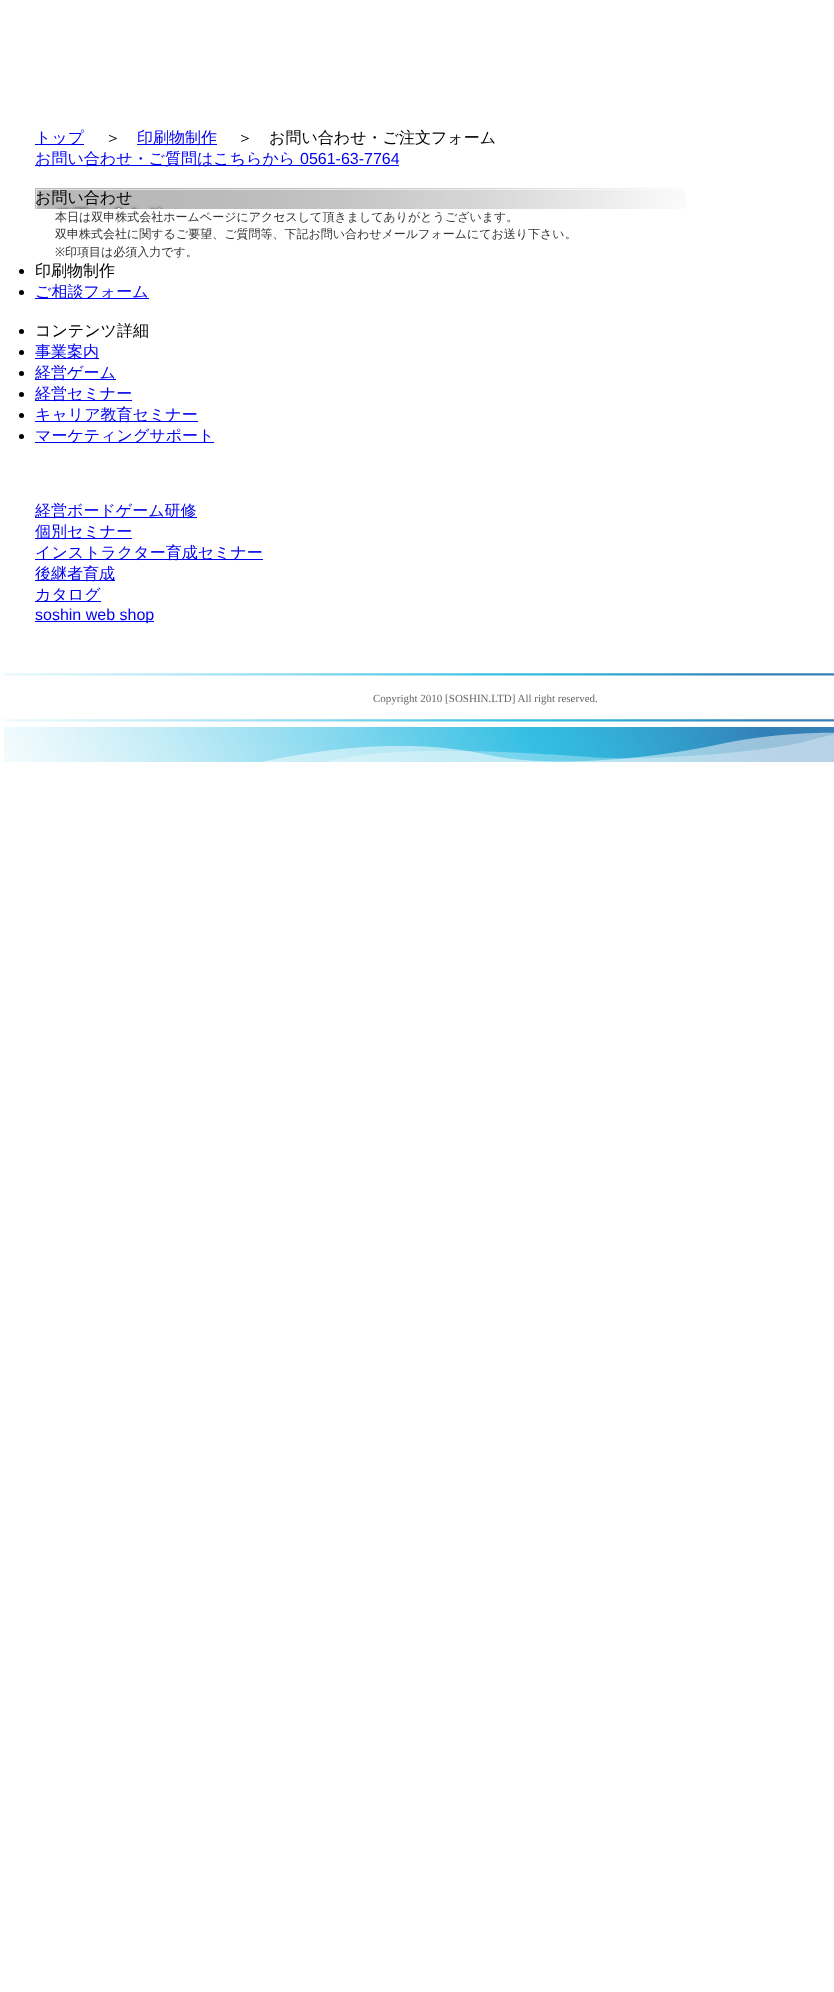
<svg xmlns="http://www.w3.org/2000/svg" width="834" height="1992">
<style>
.a{font:500 16px WenQuanYi Zen Hei;fill:#00e}
.b{font:500 16px WenQuanYi Zen Hei;fill:#000}
.c{font:16px Liberation Sans;fill:#00e}
.d{font:500 12px WenQuanYi Zen Hei;fill:#333}
.e{font:12px Noto Sans;fill:#333}
.f{font:11px Liberation Serif;fill:#666}
</style>
<rect width="100%" height="100%" fill="#fff"/>
<path fill="#00e" d="M35 144h49v1H35z"/>
<path fill="#00e" d="M137 144h80v1H137z"/>
<path fill="#00e" d="M35 165h364v1H35z"/>
<image href="1.png" x="35" y="188" width="651" height="21"/>
<circle fill="#000" cx="21.5" cy="271.5" r="2.5"/>
<circle fill="#000" cx="21.5" cy="292.5" r="2.5"/>
<path fill="#00e" d="M35 298h114v1H35z"/>
<circle fill="#000" cx="21.5" cy="331.5" r="2.5"/>
<circle fill="#000" cx="21.5" cy="352.5" r="2.5"/>
<path fill="#00e" d="M35 358h64v1H35z"/>
<circle fill="#000" cx="21.5" cy="373.5" r="2.5"/>
<path fill="#00e" d="M35 379h81v1H35z"/>
<circle fill="#000" cx="21.5" cy="394.5" r="2.5"/>
<path fill="#00e" d="M35 400h97v1H35z"/>
<circle fill="#000" cx="21.5" cy="415.5" r="2.5"/>
<path fill="#00e" d="M35 421h163v1H35z"/>
<circle fill="#000" cx="21.5" cy="436.5" r="2.5"/>
<path fill="#00e" d="M35 442h179v1H35z"/>
<path fill="#00e" d="M35 517h162v1H35z"/>
<path fill="#00e" d="M35 538h97v1H35z"/>
<path fill="#00e" d="M35 559h228v1H35z"/>
<path fill="#00e" d="M35 580h80v1H35z"/>
<path fill="#00e" d="M35 601h66v1H35z"/>
<path fill="#00e" d="M35 621h119v1H35z"/>
<image href="2.png" x="3" y="673" width="831" height="89"/>
<text class="a" x="35" y="143">トップ</text>
<text class="b" x="105" y="143">＞</text>
<text class="a" x="137" y="143">印刷物制作</text>
<text class="b" x="237" y="143">＞</text>
<text class="b" x="269" y="143">お問い合わせ・ご注文フォーム</text>
<text class="a" x="35" y="164">お問い合わせ・ご質問はこちらから</text>
<text class="c" x="300" y="164">0561-63-7764</text>
<text class="b" x="35" y="203">お問い合わせ</text>
<text class="d" x="55" y="221">本日は双申株式会社ホームページにアクセスして頂きましてありがとうございます。</text>
<text class="d" x="55" y="238">双申株式会社に関するご要望、ご質問等、下記お問い合わせメールフォームにてお送り下さい。</text>
<text class="e" x="55" y="256">※</text>
<text class="d" x="65" y="256">印項目は必須入力です。</text>
<text class="b" x="35" y="276">印刷物制作</text>
<text class="a" x="35" y="297">ご相談フォーム</text>
<text class="b" x="35" y="336">コンテンツ詳細</text>
<text class="a" x="35" y="357">事業案内</text>
<text class="a" x="35" y="378">経営ゲーム</text>
<text class="a" x="35" y="399">経営セミナー</text>
<text class="a" x="35" y="420">キャリア教育セミナー</text>
<text class="a" x="35" y="441">マーケティングサポート</text>
<text class="a" x="35" y="516">経営ボードゲーム研修</text>
<text class="a" x="35" y="537">個別セミナー</text>
<text class="a" x="35" y="558">インストラクター育成セミナー</text>
<text class="a" x="35" y="579">後継者育成</text>
<text class="a" x="35" y="600">カタログ</text>
<text class="c" x="35" y="620">soshin web shop</text>
<text class="f" x="373" y="702">Copyright 2010 [SOSHIN.LTD] All right reserved.</text>
</svg>
